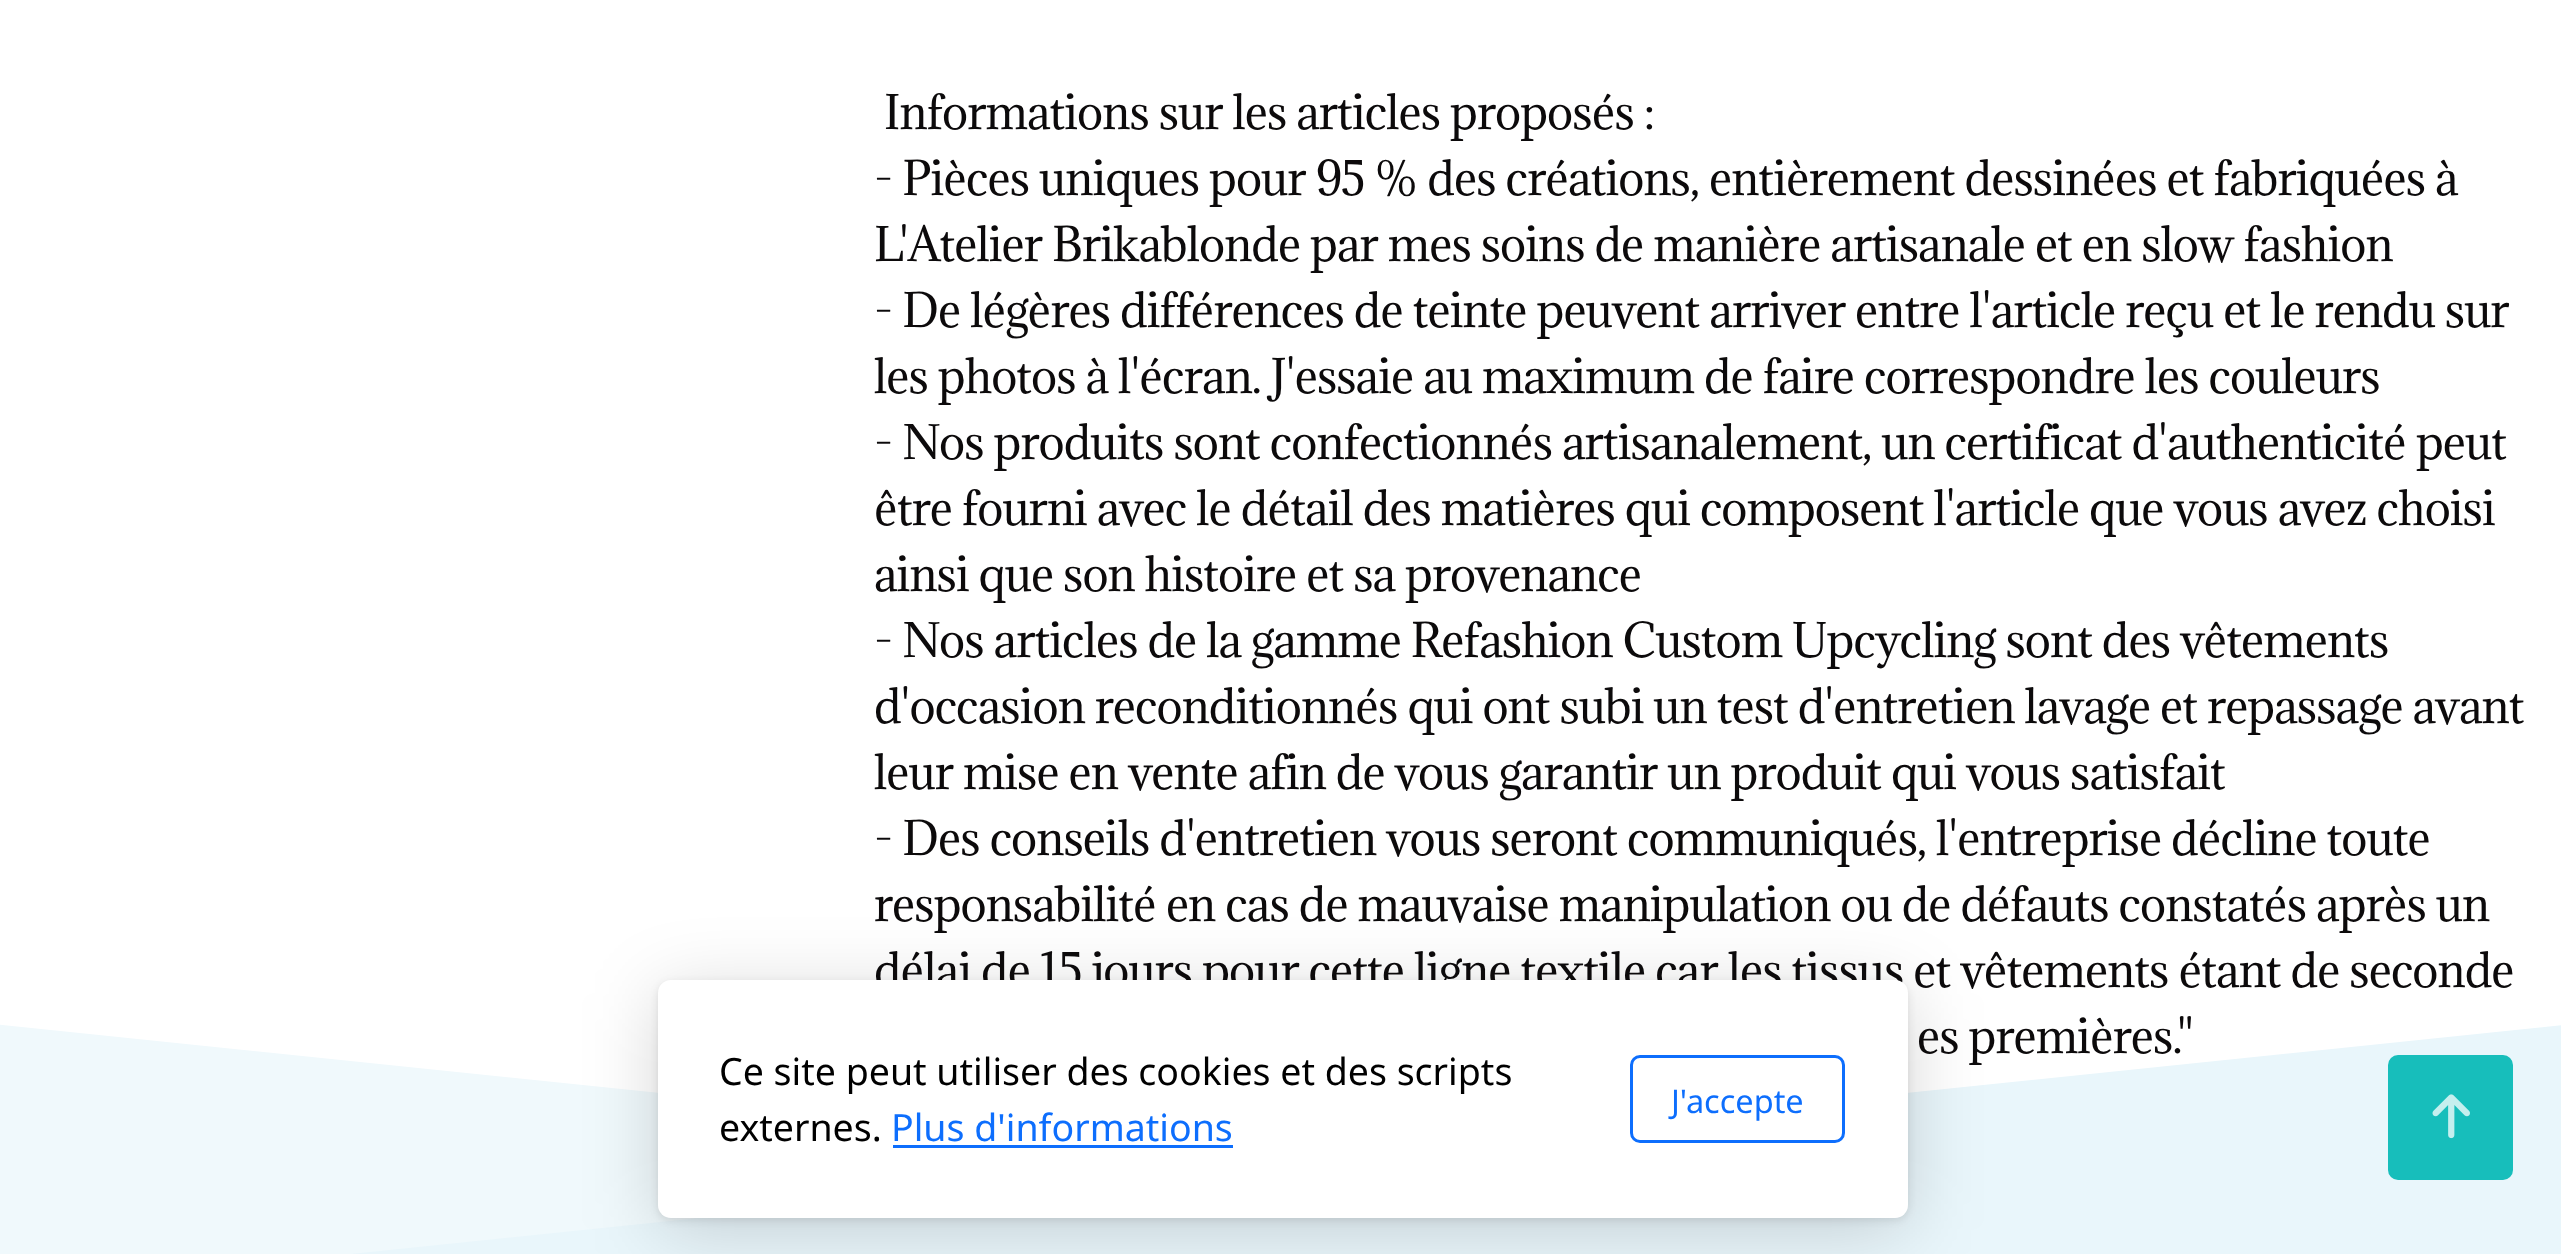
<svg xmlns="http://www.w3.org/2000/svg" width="2561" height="1254">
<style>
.a{font:44px Adamina;letter-spacing:-0.88px;fill:#0c0a0b}
.b{font:37.5px Noto Sans;fill:#000}
.c{font:37.5px Noto Sans;fill:#0d6efd}
.d{font:32.5px Noto Sans;fill:#0d6efd}
</style>
<rect width="100%" height="100%" fill="#fff"/>
<path fill="#f0f9fc" d="M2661 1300l-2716-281l-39 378l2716 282z"/>
<path fill="#e9f6fb" d="M-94 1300l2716-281l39 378l-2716 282z"/>
<rect fill="#00000029" filter="blur(37.5px)" x="658" y="993" width="1250" height="237" rx="13"/>
<rect fill="#0000001a" filter="blur(4px)" x="658" y="983" width="1250" height="237" rx="13"/>
<rect fill="#17bebb" x="2388" y="1055" width="125" height="125" rx="10"/>
<image href="1.png" x="2432" y="1094" width="38" height="45"/>
<text class="a" x="884" y="129">Informations sur les articles proposés :</text>
<text class="a" x="874" y="195">- Pièces uniques pour 95 % des créations, entièrement dessinées et fabriquées à</text>
<text class="a" x="874" y="261">L'Atelier Brikablonde par mes soins de manière artisanale et en slow fashion</text>
<text class="a" x="874" y="327">- De légères différences de teinte peuvent arriver entre l'article reçu et le rendu sur</text>
<text class="a" x="874" y="393">les photos à l'écran. J'essaie au maximum de faire correspondre les couleurs</text>
<text class="a" x="874" y="459">- Nos produits sont confectionnés artisanalement, un certificat d'authenticité peut</text>
<text class="a" x="874" y="525">être fourni avec le détail des matières qui composent l'article que vous avez choisi</text>
<text class="a" x="874" y="591">ainsi que son histoire et sa provenance</text>
<text class="a" x="874" y="657">- Nos articles de la gamme Refashion Custom Upcycling sont des vêtements</text>
<text class="a" x="874" y="723">d'occasion reconditionnés qui ont subi un test d'entretien lavage et repassage avant</text>
<text class="a" x="874" y="789">leur mise en vente afin de vous garantir un produit qui vous satisfait</text>
<text class="a" x="874" y="855">- Des conseils d'entretien vous seront communiqués, l'entreprise décline toute</text>
<text class="a" x="874" y="921">responsabilité en cas de mauvaise manipulation ou de défauts constatés après un</text>
<text class="a" x="874" y="987">délai de 15 jours pour cette ligne textile car les tissus et vêtements étant de seconde</text>
<text class="a" x="1917" y="1053">es premières."</text>
<rect fill="#fff" x="658" y="980" width="1250" height="238" rx="13"/>
<text class="b" x="719" y="1085">Ce site peut utiliser des cookies et des scripts</text>
<text class="b" x="719" y="1141">externes.</text>
<text class="c" x="891" y="1141">Plus d'informations</text>
<path fill="#0d6efd" d="M893 1145h340v3H893z"/>
<rect fill="none" stroke="#0d6efd" stroke-width="3" x="1631.5" y="1056.5" width="212" height="85" rx="8.5"/>
<text class="d" x="1671" y="1113">J'accepte</text>
</svg>
